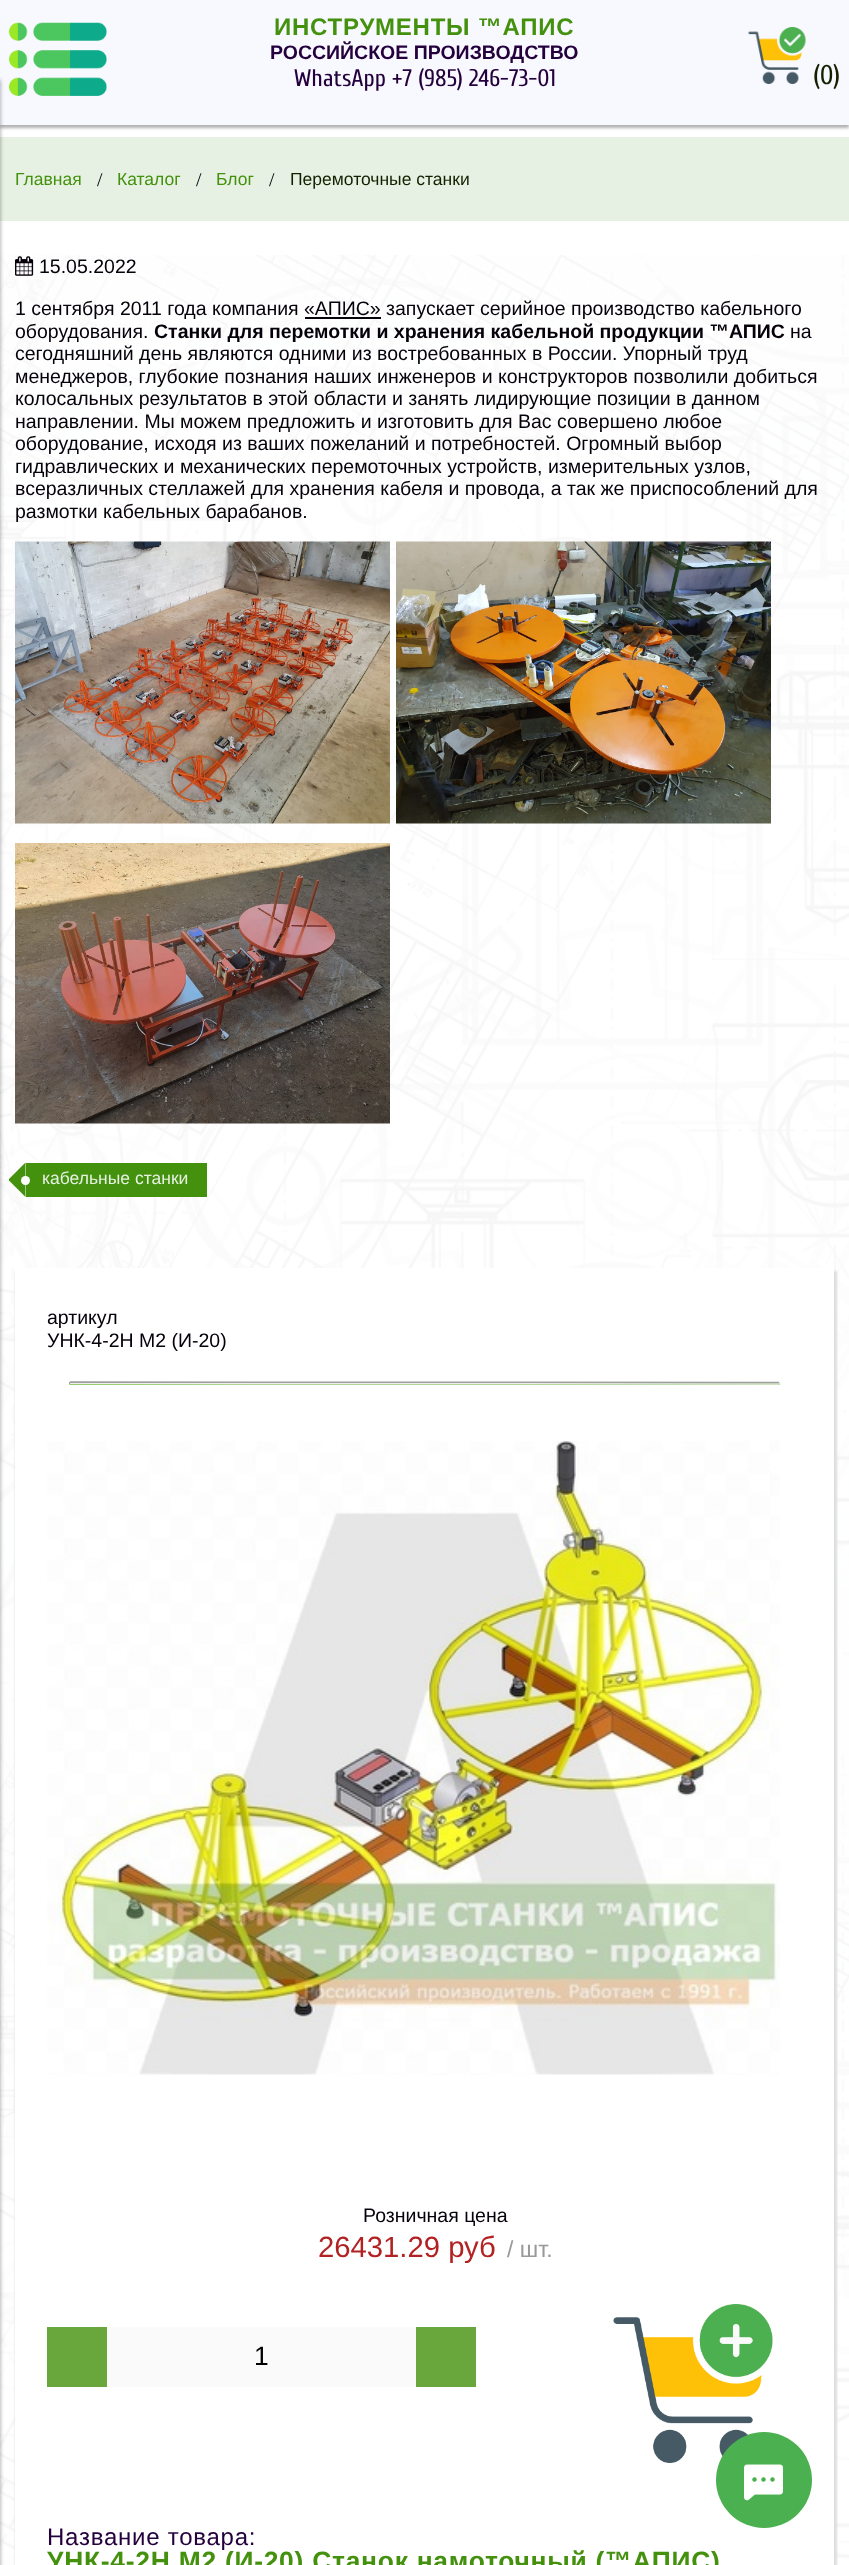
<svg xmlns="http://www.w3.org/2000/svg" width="849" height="2565">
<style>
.a{font:bold 24px Liberation Sans;letter-spacing:0.75px;fill:#43910d}
.b{font:bold 19.5px Liberation Sans;fill:#24003d}
.c{font:24px Cuprum;fill:#24003d}
.d{font:27px Cuprum;fill:#142100}
.e{font:17.5px Liberation Sans;fill:#43910d}
.f{font:19.5px Liberation Serif;fill:#06000a}
.g{font:17.5px Liberation Sans;fill:#142100}
.h{font:19.5px Liberation Sans;fill:#06000a}
.i{font:bold 19.5px Liberation Sans;fill:#06000a}
.j{font:17.5px Liberation Sans;fill:#e7f1e3}
.k{font:29.25px Liberation Sans;fill:#b22222}
.l{font:23px Liberation Sans;fill:#999}
.m{font:26.4px Liberation Sans;fill:#000}
.n{font:24px Liberation Sans;letter-spacing:0.75px;fill:#24003d}
.o{font:bold 26.4px Liberation Sans;letter-spacing:0.75px;fill:#43910d}
</style>
<rect width="100%" height="100%" fill="#fff"/>
<path fill="#0000004d" filter="blur(1.5px)" d="M0 3h849v125H0z"/>
<path fill="#f8f8ff" d="M0 0h849v125H0z"/>
<image href="1.png" x="9" y="22" width="98" height="74"/>
<image href="2.png" x="748" y="27" width="58" height="57"/>
<path fill="#e7f1e3" d="M0 137h849v84H0z"/>
<image href="3.png" x="0" y="255" width="849" height="2310"/>
<path fill="#00000066" filter="blur(2px)" d="M-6 80h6v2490H-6z"/>
<image href="4.png" x="15" y="256" width="19" height="20"/>
<path fill="#06000a" d="M305 317h76v2H305z"/>
<image href="5.png" x="15" y="541" width="375" height="283"/>
<image href="6.png" x="396" y="541" width="375" height="283"/>
<image href="7.png" x="15" y="843" width="375" height="281"/>
<path fill="#43910d" d="M26 1163h181v34H26z"/>
<path fill="#43910d" d="M25.5 1162.5v34.5l-16.5-16.5v-1.5z"/>
<circle fill="#fff" cx="25.5" cy="1180.5" r="4.5"/>
<path fill="#ddd" filter="blur(1px)" d="M15 1271h822v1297H15z"/>
<path fill="#fff" d="M15 1268h819v1297H15z"/>
<rect fill="#74c13f" x="69" y="1382" width="711" height="3" rx="1.5"/>
<path fill="none" stroke="#eee" stroke-width="1.5" d="M779 1382.5c.5 .5 0 1-.5 1.5l-708.5-.5"/>
<path fill="none" stroke="#9f9f9f" stroke-width="1.5" d="M70 1383.5c-.5-.5 0-1 .5-1.5l708.5 .5"/>
<image href="8.png" x="47" y="1441" width="733" height="634"/>
<path fill="#69a73d" d="M47 2327h60v60H47z"/>
<path fill="#fafafa" d="M107 2327h309v60H107z"/>
<path fill="#69a73d" d="M416 2327h60v60H416z"/>
<image href="9.png" x="613" y="2304" width="160" height="159"/>
<circle fill="#4bb04f" cx="764" cy="2480" r="48"/>
<image href="10.png" x="744" y="2464" width="39" height="37"/>
<text class="a" x="274" y="35">ИНСТРУМЕНТЫ ™АПИС</text>
<text class="b" x="270" y="59">РОССИЙСКОЕ ПРОИЗВОДСТВО</text>
<text class="c" x="294" y="86">WhatsApp +7 (985) 246-73-01</text>
<text class="d" x="813" y="84">(0)</text>
<text class="e" x="15" y="185">Главная</text>
<text class="f" x="97" y="186">/</text>
<text class="e" x="117" y="185">Каталог</text>
<text class="f" x="196" y="186">/</text>
<text class="e" x="216" y="185">Блог</text>
<text class="f" x="269" y="186">/</text>
<text class="g" x="290" y="185">Перемоточные станки</text>
<text class="h" x="39" y="273">15.05.2022</text>
<text class="h" x="15" y="315">1 сентября 2011 года компания «АПИС» запускает серийное производство кабельного</text>
<text class="h" x="15" y="338">оборудования.</text>
<text class="i" x="154" y="338">Станки для перемотки и хранения кабельной продукции ™АПИС</text>
<text class="h" x="790" y="338">на</text>
<text class="h" x="15" y="360">сегодняшний день являются одними из востребованных в России. Упорный труд</text>
<text class="h" x="15" y="383">менеджеров, глубокие познания наших инженеров и конструкторов позволили добиться</text>
<text class="h" x="15" y="405">колосальных результатов в этой области и занять лидирующие позиции в данном</text>
<text class="h" x="15" y="428">направлении. Мы можем предложить и изготовить для Вас совершено любое</text>
<text class="h" x="15" y="450">оборудование, исходя из ваших пожеланий и потребностей. Огромный выбор</text>
<text class="h" x="15" y="473">гидравлических и механических перемоточных устройств, измерительных узлов,</text>
<text class="h" x="15" y="495">всеразличных стеллажей для хранения кабеля и провода, а так же приспособлений для</text>
<text class="h" x="15" y="518">размотки кабельных барабанов.</text>
<text class="j" x="42" y="1184">кабельные станки</text>
<text class="h" x="47" y="1324">артикул</text>
<text class="h" x="47" y="1347">УНК-4-2Н М2 (И-20)</text>
<text class="h" x="363" y="2222">Розничная цена</text>
<text class="k" x="318" y="2257">26431.29 руб</text>
<text class="l" x="507" y="2257">/ шт.</text>
<text class="m" x="254" y="2365">1</text>
<text class="n" x="47" y="2545">Название товара:</text>
<text class="o" x="47" y="2570">УНК-4-2Н М2 (И-20) Станок намоточный (™АПИС)</text>
</svg>
